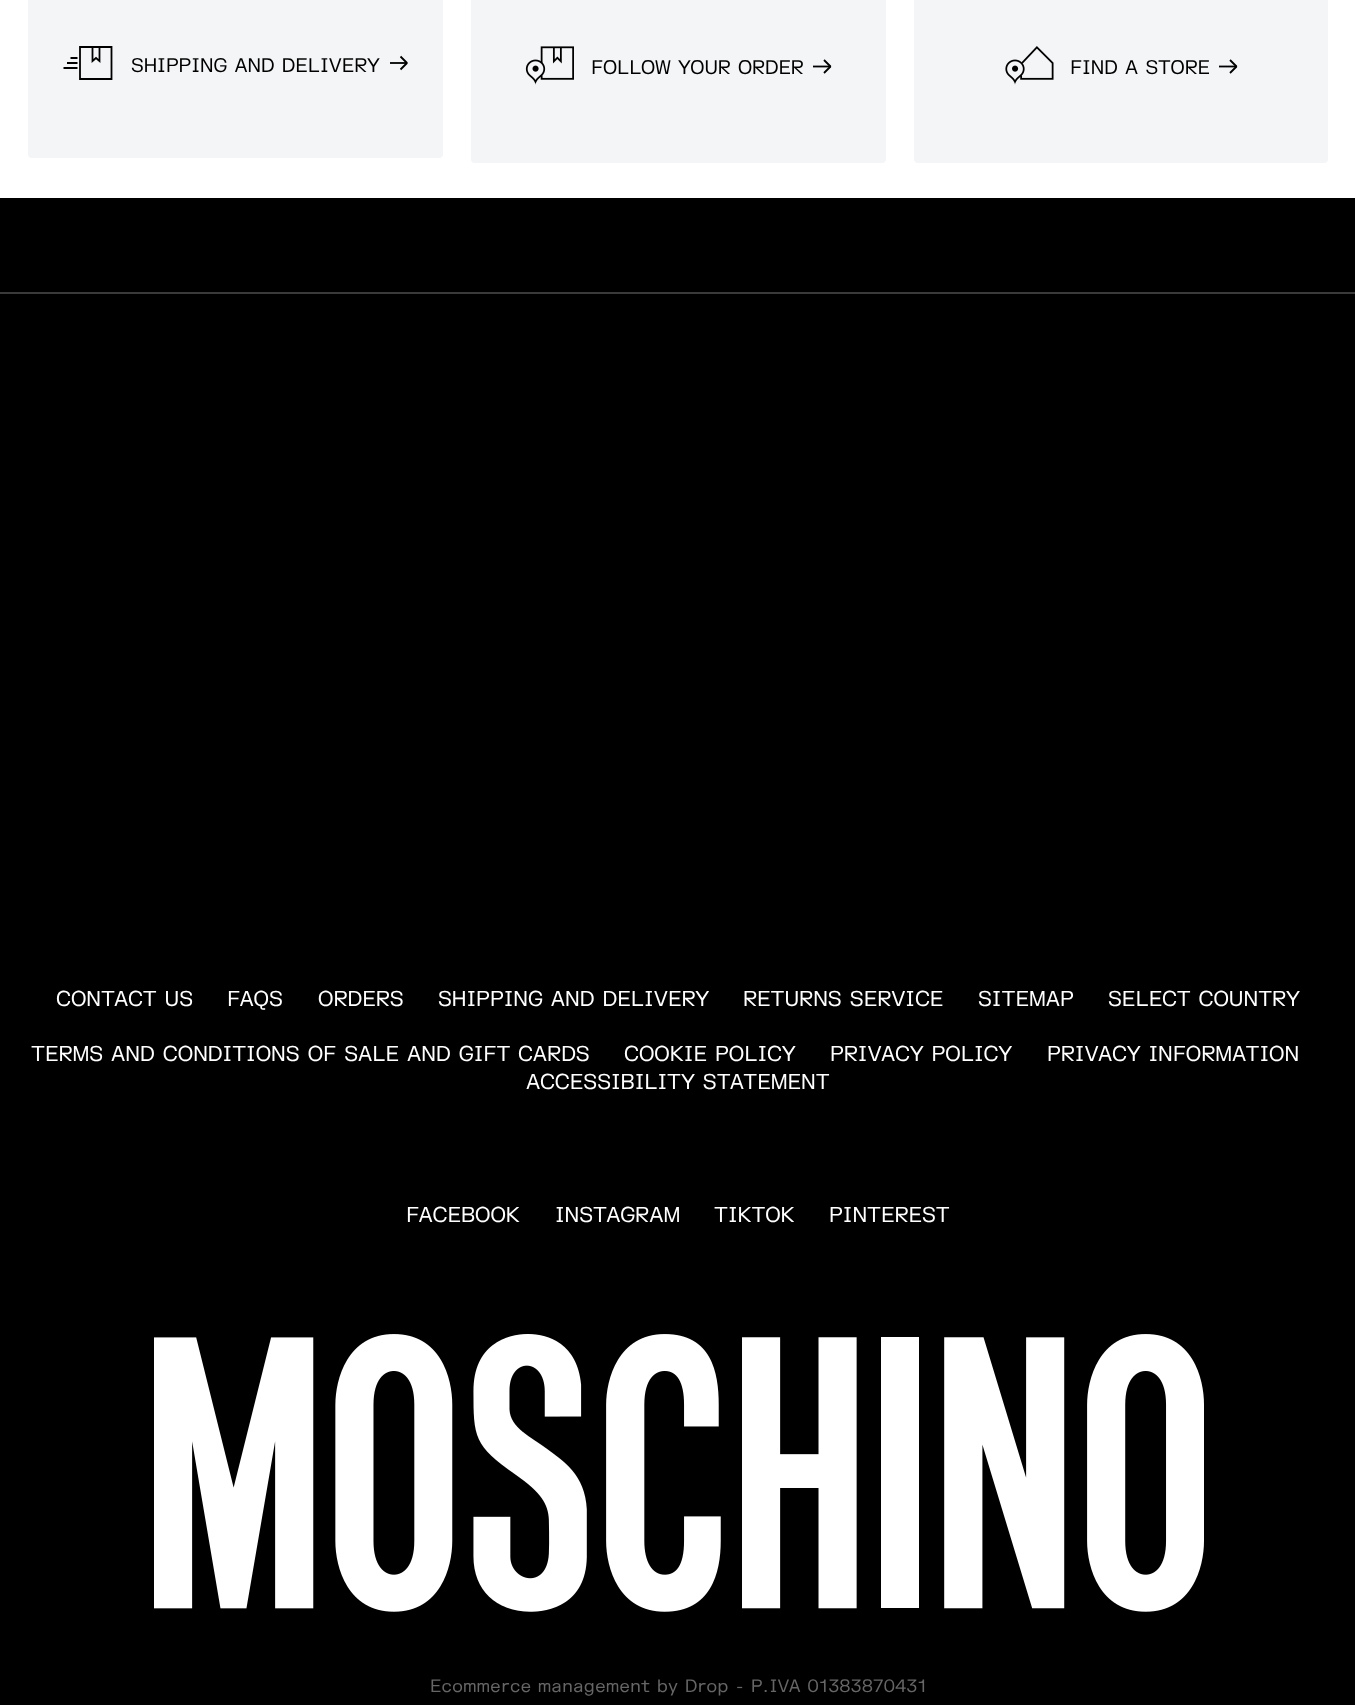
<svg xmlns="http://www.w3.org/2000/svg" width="1355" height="1705">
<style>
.a{font:19.25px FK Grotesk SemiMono;fill:#000}
.b{font:21px FK Grotesk SemiMono;fill:#fff}
.c{font:17.5px FK Grotesk SemiMono;fill:#666}
</style>
<rect width="100%" height="100%" fill="#000"/>
<path fill="#fff" d="M0 0h1355v198H0z"/>
<rect fill="#f4f5f7" x="28" y="-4" width="415" height="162" rx="4"/>
<path fill="none" stroke="#000" stroke-width="1.8" d="M92.5 47h-12.5v32h31.5v-32h-12m-7 0v14l3.5-3l3.5 3v-14m-7 0h7m-22 11h-7m7 5h-10.5m10.5 5h-14"/>
<path fill="#181919" d="M390 62h17v2H390z"/>
<path fill="none" stroke="#000" stroke-width="1.8" stroke-linejoin="bevel" d="M400.5 56.5l6.5 6.5l-6.5 6.5"/>
<rect fill="#f4f5f7" x="471" y="-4" width="415" height="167" rx="4"/>
<image href="1.png" x="525" y="46" width="49" height="39"/>
<path fill="none" stroke="#000" stroke-width="1.8" d="M813 66.5h17.5"/>
<path fill="none" stroke="#000" stroke-width="1.8" stroke-linejoin="bevel" d="M824 60l6.5 6.5l-6.5 6.5"/>
<rect fill="#f4f5f7" x="914" y="-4" width="414" height="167" rx="4"/>
<image href="2.png" x="1005" y="46" width="49" height="39"/>
<path fill="none" stroke="#000" stroke-width="1.8" d="M1219 66.5h17.5"/>
<path fill="none" stroke="#000" stroke-width="1.8" stroke-linejoin="bevel" d="M1230 60l6.5 6.5l-6.5 6.5"/>
<path fill="#3a3a3a" d="M0 292h1355v2H0z"/>
<image href="3.png" x="154" y="1334" width="1050" height="278"/>
<text class="a" x="131" y="72">SHIPPING AND DELIVERY</text>
<text class="a" x="591" y="74">FOLLOW YOUR ORDER</text>
<text class="a" x="1070" y="74">FIND A STORE</text>
<text class="b" x="56" y="1006">CONTACT US</text>
<text class="b" x="227" y="1006">FAQS</text>
<text class="b" x="318" y="1006">ORDERS</text>
<text class="b" x="438" y="1006">SHIPPING AND DELIVERY</text>
<text class="b" x="743" y="1006">RETURNS SERVICE</text>
<text class="b" x="978" y="1006">SITEMAP</text>
<text class="b" x="1108" y="1006">SELECT COUNTRY</text>
<text class="b" x="31" y="1061">TERMS AND CONDITIONS OF SALE AND GIFT CARDS</text>
<text class="b" x="624" y="1061">COOKIE POLICY</text>
<text class="b" x="830" y="1061">PRIVACY POLICY</text>
<text class="b" x="1047" y="1061">PRIVACY INFORMATION</text>
<text class="b" x="526" y="1089">ACCESSIBILITY STATEMENT</text>
<text class="b" x="406" y="1222">FACEBOOK</text>
<text class="b" x="555" y="1222">INSTAGRAM</text>
<text class="b" x="714" y="1222">TIKTOK</text>
<text class="b" x="829" y="1222">PINTEREST</text>
<text class="c" x="430" y="1692">Ecommerce management by Drop</text>
<text class="c" x="735" y="1692">- P.IVA 01383870431</text>
</svg>
